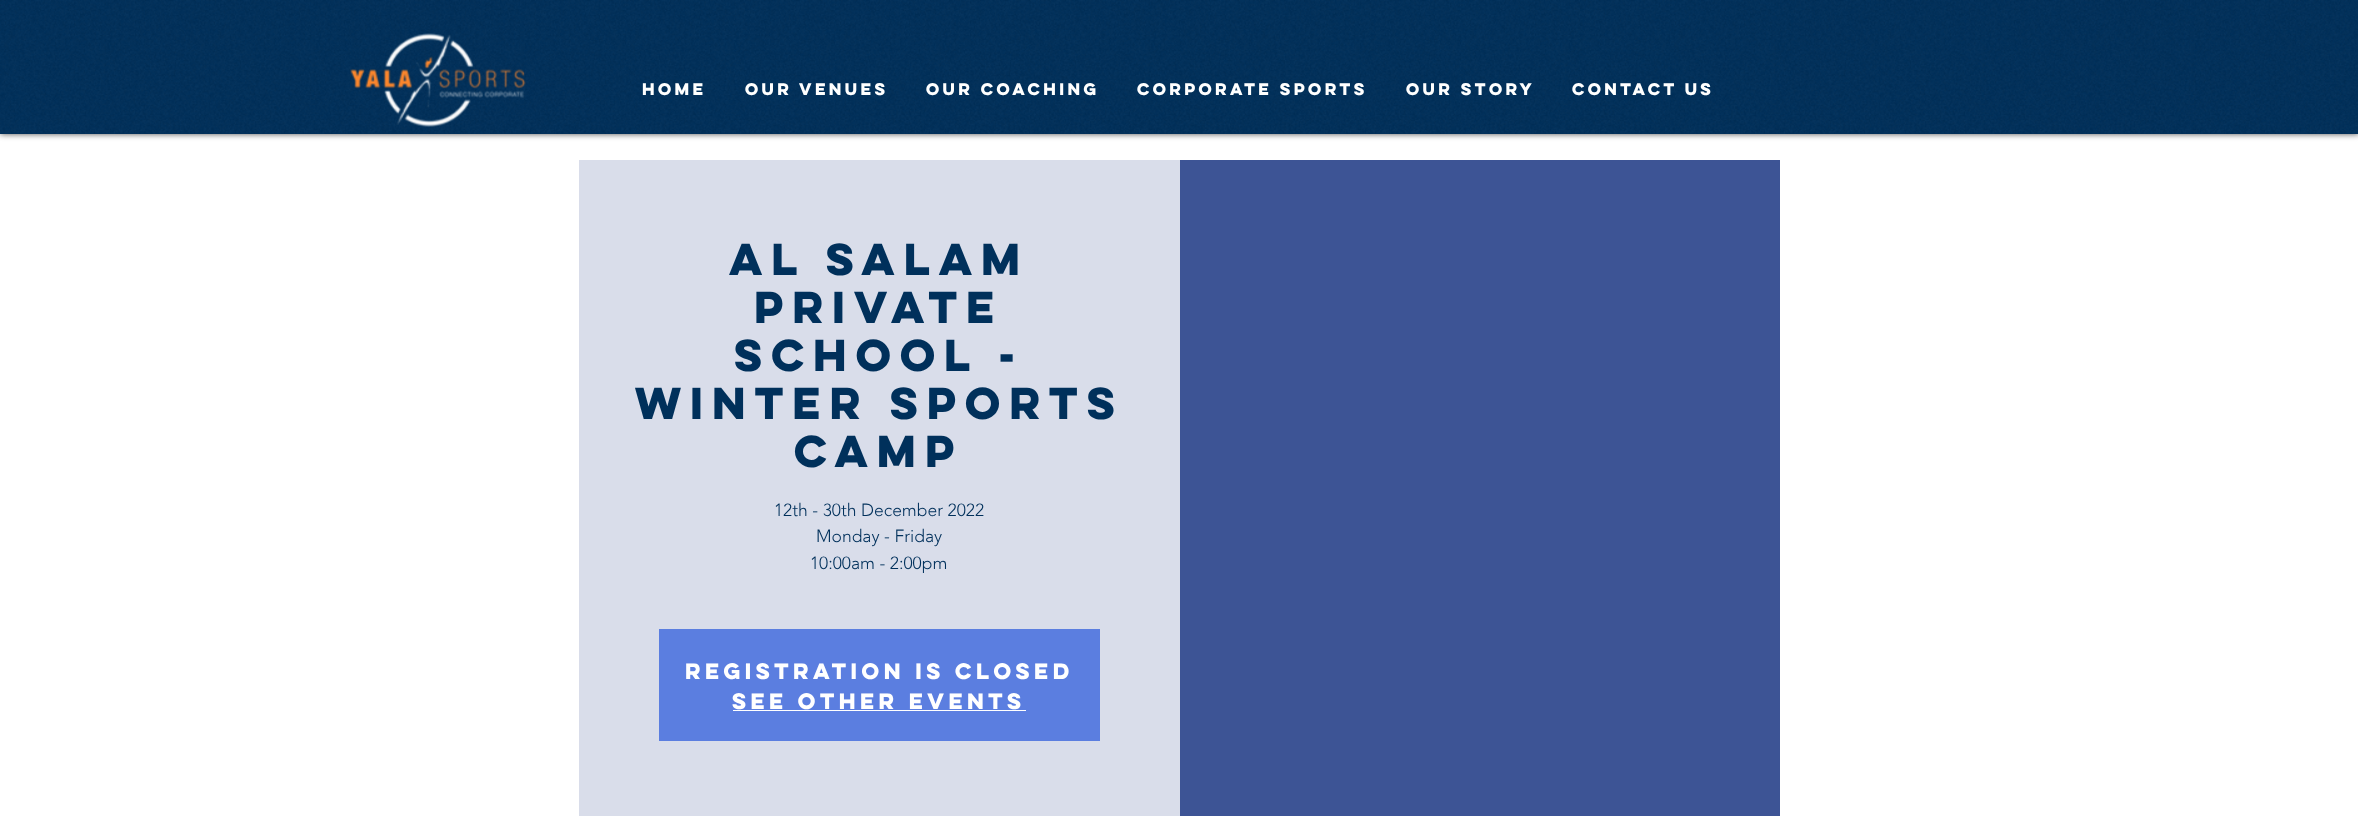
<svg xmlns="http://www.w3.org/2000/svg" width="2358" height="830">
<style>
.a{font:bold 15px 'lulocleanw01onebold';fill:#fff}
.b{font:bold 40px 'lulocleanw01onebold';fill:#00305b}
.c{font:300 17.5px 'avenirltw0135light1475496';fill:#00305b}
.d{font:bold 20px 'lulocleanw01onebold';fill:#fff}
</style>
<rect width="100%" height="100%" fill="#fff"/>
<path fill="#000000b3" filter="blur(3px)" d="M0 0h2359v134H0z"/>
<path fill="#00305b" d="M0 0h2358v134H0z"/>
<image href="1.png" x="0" y="0" width="2358" height="134"/>
<image href="2.png" x="350" y="33" width="176" height="94"/>
<path fill="#d9ddea" d="M579 160h601v656H579z"/>
<path fill="#5b7ee0" d="M659 629h441v112H659z"/>
<path fill="#fff" d="M733 710h293v1H733z"/>
<path fill="#3d5495" d="M1180 160h600v656H1180z"/>
<text class="a" x="642" y="95">Home</text>
<text class="a" x="745" y="95">Our Venues</text>
<text class="a" x="926" y="95">Our Coaching</text>
<text class="a" x="1137" y="95">Corporate Sports</text>
<text class="a" x="1406" y="95">Our Story</text>
<text class="a" x="1572" y="95">Contact Us</text>
<text class="b" x="729" y="275">Al Salam</text>
<text class="b" x="754" y="323">Private</text>
<text class="b" x="734" y="371">School -</text>
<text class="b" x="635" y="419">Winter Sports</text>
<text class="b" x="794" y="467">Camp</text>
<text class="c" x="774" y="516">12th - 30th December 2022</text>
<text class="c" x="816" y="542">Monday - Friday</text>
<text class="c" x="810" y="569">10:00am - 2:00pm</text>
<text class="d" x="685" y="679">Registration is Closed</text>
<text class="d" x="732" y="709">See other events</text>
</svg>
